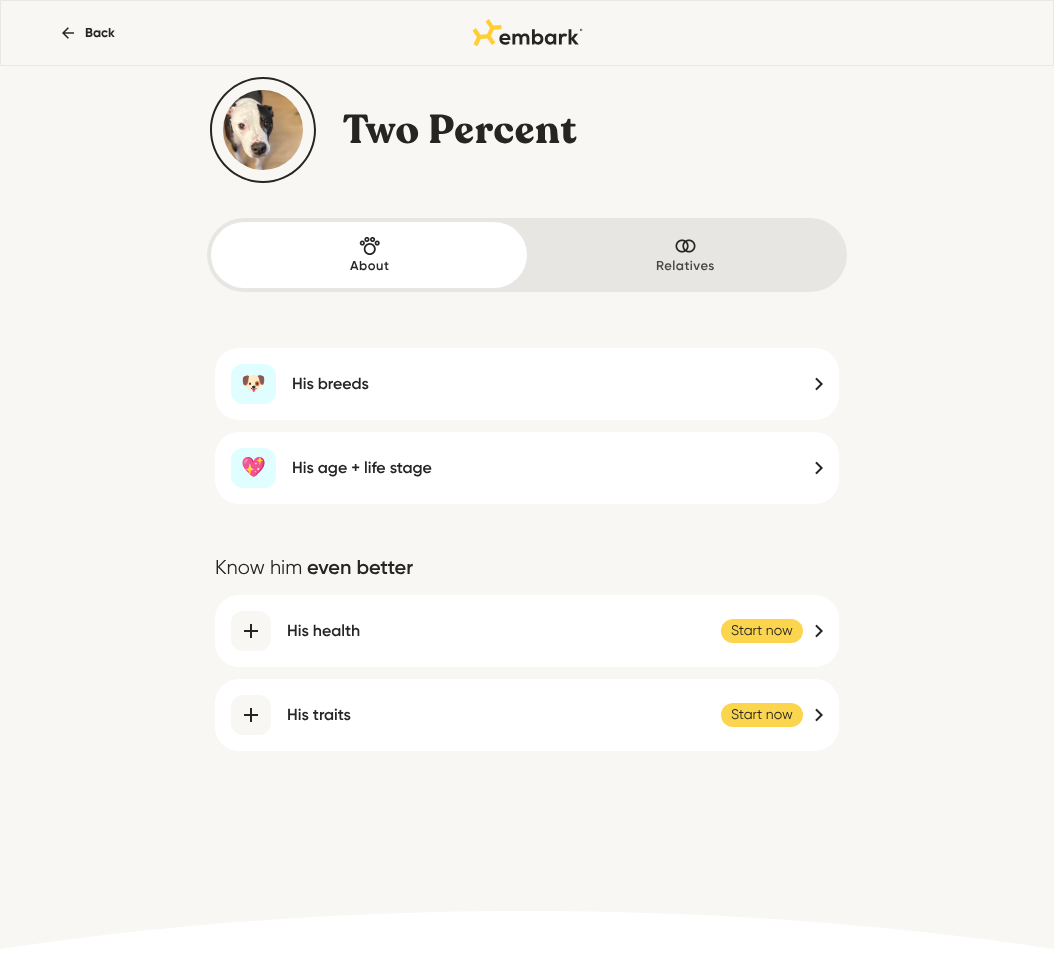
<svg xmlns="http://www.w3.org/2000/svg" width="1054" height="965">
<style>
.a{font:bold 13px Gilroy;fill:#262523}
.b{font:bold 40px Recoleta;letter-spacing:0.75px;fill:#262523}
.c{font:600 13px Gilroy;letter-spacing:0.5px;fill:#262523}
.d{font:600 13px Gilroy;letter-spacing:0.5px;fill:#474744}
.e{font:20px Noto Color Emoji;fill:#262523}
.f{font:600 16px Gilroy;fill:#262523}
.g{font:20px Gilroy;fill:#262523}
.h{font:600 20px Gilroy;fill:#262523}
.i{font:14px Gilroy;fill:#262523}
</style>
<defs>
<clipPath id="clip1"><path d="M0 911h1054v43H0z"/></clipPath>
</defs>
<rect width="100%" height="100%" fill="#f8f7f4"/>
<path fill="none" stroke="#e8e8e5" d="M0.5 0.5h1053v65H0.5z"/>
<image href="1.png" x="62" y="27" width="12" height="12"/>
<image href="2.png" x="472" y="19" width="111" height="28"/>
<path fill="#262523" d="M263 77c29 0 53 24 53 53c0 29-24 53-53 53c-29 0-53-24-53-53c0-29 24-53 53-53m0 2c-28 0-51 23-51 51c0 28 23 51 51 51c28 0 51-23 51-51c0-28-23-51-51-51z"/>
<image href="3.png" x="223" y="90" width="80" height="80"/>
<rect fill="#e7e6e3" x="207" y="218" width="640" height="74" rx="37"/>
<rect fill="#fff" x="211" y="222" width="316" height="66" rx="33"/>
<image href="4.png" x="359" y="236" width="21" height="20"/>
<image href="5.png" x="675" y="239" width="21" height="14"/>
<rect fill="#fff" x="215" y="348" width="624" height="72" rx="24"/>
<rect fill="#e0fdff" x="231" y="364" width="45" height="40" rx="12"/>
<image href="6.png" x="815" y="377" width="8" height="14"/>
<rect fill="#fff" x="215" y="432" width="624" height="72" rx="24"/>
<rect fill="#e0fdff" x="231" y="448" width="45" height="40" rx="12"/>
<image href="6.png" x="815" y="461" width="8" height="14"/>
<rect fill="#fff" x="215" y="595" width="624" height="72" rx="24"/>
<rect fill="#f8f7f4" x="231" y="611" width="40" height="40" rx="12"/>
<image href="7.png" x="244" y="624" width="14" height="14"/>
<rect fill="#fcd54e" x="721" y="619" width="82" height="24" rx="12"/>
<image href="6.png" x="815" y="624" width="8" height="14"/>
<rect fill="#fff" x="215" y="679" width="624" height="72" rx="24"/>
<rect fill="#f8f7f4" x="231" y="695" width="40" height="40" rx="12"/>
<image href="7.png" x="244" y="708" width="14" height="14"/>
<rect fill="#fcd54e" x="721" y="703" width="82" height="24" rx="12"/>
<image href="6.png" x="815" y="708" width="8" height="14"/>
<g clip-path="url(#clip1)">
<path fill="#fff" d="M527 911c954 0 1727 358 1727 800h-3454c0-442 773-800 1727-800z"/>
</g>
<path fill="#fff" d="M0 954h1054v11H0z"/>
<text class="a" x="85" y="37">Back</text>
<text class="b" x="343" y="143">Two Percent</text>
<text class="c" x="350" y="270">About</text>
<text class="d" x="656" y="270">Relatives</text>
<text class="e" x="241" y="390">🐶</text>
<text class="f" x="292" y="389">His breeds</text>
<text class="e" x="241" y="474">💖</text>
<text class="f" x="292" y="473">His age + life stage</text>
<text class="g" x="215" y="574">Know him</text>
<text class="h" x="307" y="574">even better</text>
<text class="f" x="287" y="636">His health</text>
<text class="i" x="731" y="635">Start now</text>
<text class="f" x="287" y="720">His traits</text>
<text class="i" x="731" y="719">Start now</text>
</svg>
